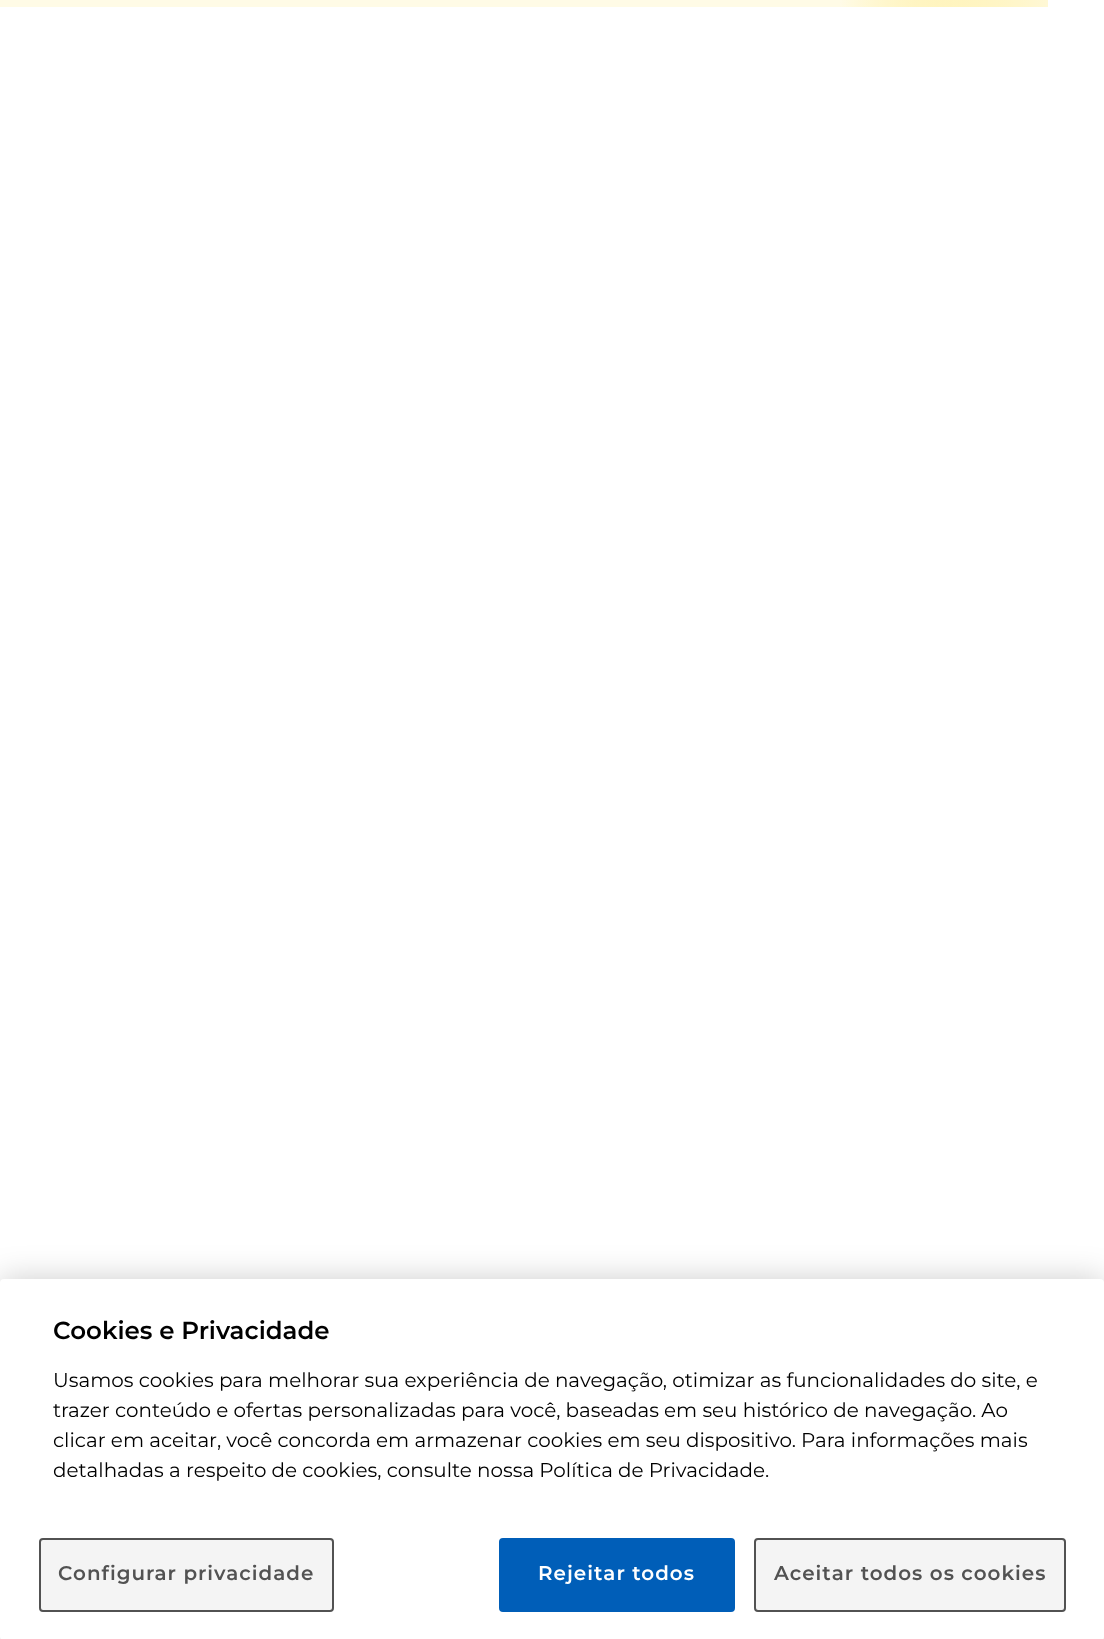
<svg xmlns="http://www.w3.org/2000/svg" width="1104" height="1639">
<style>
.a{font:600 24.5px Montserrat;fill:#000}
.b{font:19.9px Montserrat;fill:#000}
.c{font:600 19.9px Montserrat;letter-spacing:1px;fill:#525252}
.d{font:600 19.9px Montserrat;letter-spacing:1px;fill:#fff}
</style>
<defs>
<linearGradient id="g1" gradientUnits="userSpaceOnUse" x1="0" y1="3.5" x2="1049" y2="3.5"><stop offset="0.8" stop-color="#fffbe6"/><stop offset="0.9" stop-color="#ffea80"/><stop offset="1" stop-color="#fd3"/></linearGradient>
<linearGradient id="g2" gradientUnits="userSpaceOnUse" x1="0" y1="3.5" x2="1049" y2="3.5"><stop offset="0.8" stop-color="#fff" stop-opacity="0.1"/><stop offset="0.9" stop-color="#fff" stop-opacity="0.5"/><stop offset="1" stop-color="#fff" stop-opacity="0.8"/></linearGradient>
</defs>
<rect width="100%" height="100%" fill="#fff"/>
<path fill="url(#g1)" d="M0 0h1048v7H0z"/>
<path fill="url(#g2)" d="M840 0h208v7H840z"/>
<rect fill="#00000033" filter="blur(16px)" y="1279" width="1104" height="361" rx="4"/>
<rect fill="#fff" y="1279" width="1104" height="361" rx="4"/>
<rect fill="#f4f4f4" stroke="#525252" stroke-width="2" x="40" y="1539" width="293" height="72" rx="3"/>
<rect fill="#005eb8" stroke="#005eb8" stroke-width="2" x="500" y="1539" width="234" height="72" rx="3"/>
<rect fill="#f4f4f4" stroke="#525252" stroke-width="2" x="755" y="1539" width="310" height="72" rx="3"/>
<text class="a" x="53" y="1339">Cookies e Privacidade</text>
<text class="b" x="53" y="1387">Usamos cookies para melhorar sua experiência de navegação, otimizar as funcionalidades do site, e</text>
<text class="b" x="53" y="1417">trazer conteúdo e ofertas personalizadas para você, baseadas em seu histórico de navegação. Ao</text>
<text class="b" x="53" y="1447">clicar em aceitar, você concorda em armazenar cookies em seu dispositivo. Para informações mais</text>
<text class="b" x="53" y="1477">detalhadas a respeito de cookies, consulte nossa Política de Privacidade.</text>
<text class="c" x="58" y="1580">Configurar privacidade</text>
<text class="d" x="538" y="1580">Rejeitar todos</text>
<text class="c" x="774" y="1580">Aceitar todos os cookies</text>
</svg>
